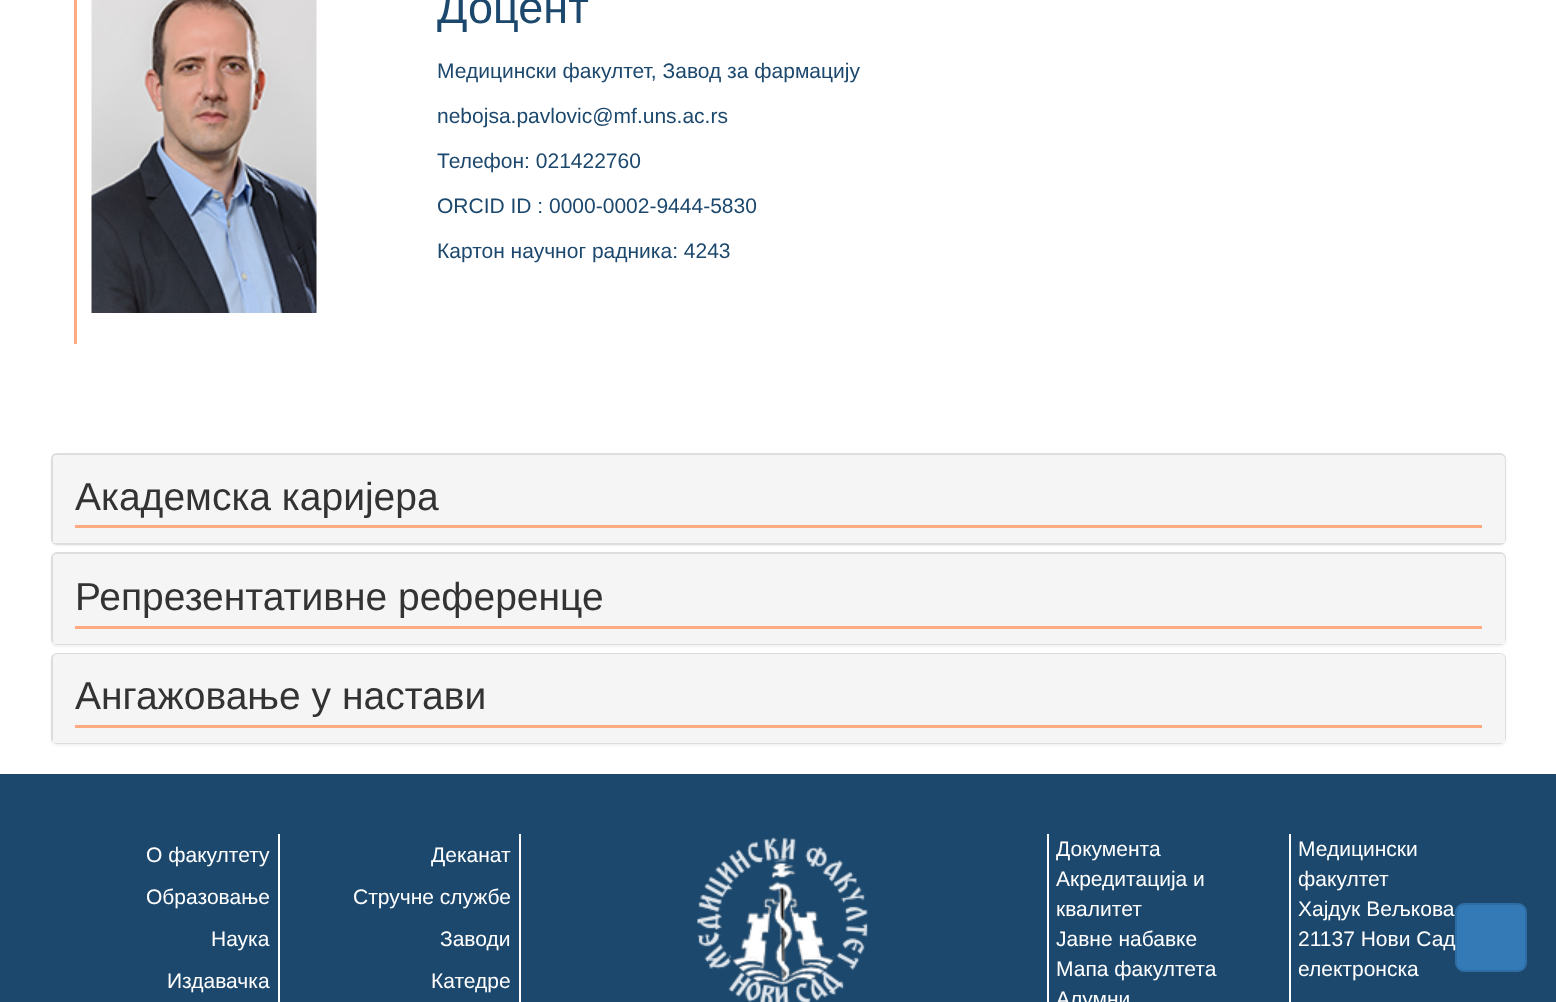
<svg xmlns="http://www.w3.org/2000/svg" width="1556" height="1002">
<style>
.a{font:45px Liberation Sans;fill:#1c486d}
.b{font:21px Liberation Sans;fill:#1c486d}
.c{font:39px Liberation Sans;fill:#333}
.d{font:21px Liberation Sans;fill:#fff}
</style>
<rect width="100%" height="100%" fill="#fff"/>
<path fill="#ffaa81" d="M74 0h3v344H74z"/>
<image href="1.png" x="91" y="0" width="226" height="313"/>
<rect fill="#0000000d" filter="blur(1px)" x="51" y="455" width="1455" height="91" rx="6"/>
<rect fill="#fff" stroke="#ddd" stroke-width="2" x="52" y="454" width="1453" height="90" rx="5"/>
<path fill="#f5f5f5" d="M58 455h1442c3 0 5 2 5 5v83h-1452v-83c0-3 2-5 5-5z"/>
<path fill="#ffaa81" d="M75 525h1407v3H75z"/>
<rect fill="#0000000d" filter="blur(1px)" x="51" y="554" width="1455" height="93" rx="6"/>
<rect fill="#fff" stroke="#ddd" stroke-width="2" x="52" y="553" width="1453" height="91" rx="5"/>
<path fill="#f5f5f5" d="M58 554h1442c3 0 5 2 5 5v85h-1452v-85c0-3 2-5 5-5z"/>
<path fill="#ffaa81" d="M75 626h1407v3H75z"/>
<rect fill="#0000000d" filter="blur(1px)" x="51" y="654" width="1455" height="92" rx="6"/>
<rect fill="none" stroke="#ddd" stroke-width="2" x="52" y="654" width="1453" height="89" rx="5"/>
<path fill="#f5f5f5" d="M58 654h1442c3 0 5 2 5 5v84h-1452v-84c0-3 2-5 5-5z"/>
<path fill="#ffaa81" d="M75 725h1407v3H75z"/>
<path fill="#1c486d" d="M0 774h1556v228H0z"/>
<path fill="#fff" d="M278 834h2v168H278z"/>
<path fill="#fff" d="M519 834h2v168H519z"/>
<image href="2.png" x="697" y="837" width="171" height="165"/>
<path fill="#fff" d="M1047 834h2v168H1047z"/>
<path fill="#fff" d="M1289 834h2v168H1289z"/>
<rect fill="#337ab7" stroke="#2e6da4" stroke-width="2" x="1456" y="904" width="70" height="67" rx="8"/>
<text class="a" x="437" y="23">Доцент</text>
<text class="b" x="437" y="78">Медицински факултет, Завод за фармацију</text>
<text class="b" x="437" y="123">nebojsa.pavlovic@mf.uns.ac.rs</text>
<text class="b" x="437" y="168">Телефон: 021422760</text>
<text class="b" x="437" y="213">ORCID ID : 0000-0002-9444-5830</text>
<text class="b" x="437" y="258">Картон научног радника: 4243</text>
<text class="c" x="75" y="510">Академска каријера</text>
<text class="c" x="75" y="610">Репрезентативне референце</text>
<text class="c" x="75" y="709">Ангажовање у настави</text>
<text class="d" x="146" y="862">О факултету</text>
<text class="d" x="146" y="904">Образовање</text>
<text class="d" x="211" y="946">Наука</text>
<text class="d" x="167" y="988">Издавачка</text>
<text class="d" x="431" y="862">Деканат</text>
<text class="d" x="353" y="904">Стручне службе</text>
<text class="d" x="440" y="946">Заводи</text>
<text class="d" x="431" y="988">Катедре</text>
<text class="d" x="1056" y="856">Документа</text>
<text class="d" x="1056" y="886">Акредитација и</text>
<text class="d" x="1056" y="916">квалитет</text>
<text class="d" x="1056" y="946">Јавне набавке</text>
<text class="d" x="1056" y="976">Мапа факултета</text>
<text class="d" x="1056" y="1006">Алумни</text>
<text class="d" x="1298" y="856">Медицински</text>
<text class="d" x="1298" y="886">факултет</text>
<text class="d" x="1298" y="916">Хајдук Вељкова</text>
<text class="d" x="1298" y="946">21137 Нови Сад</text>
<text class="d" x="1298" y="976">електронска</text>
</svg>
